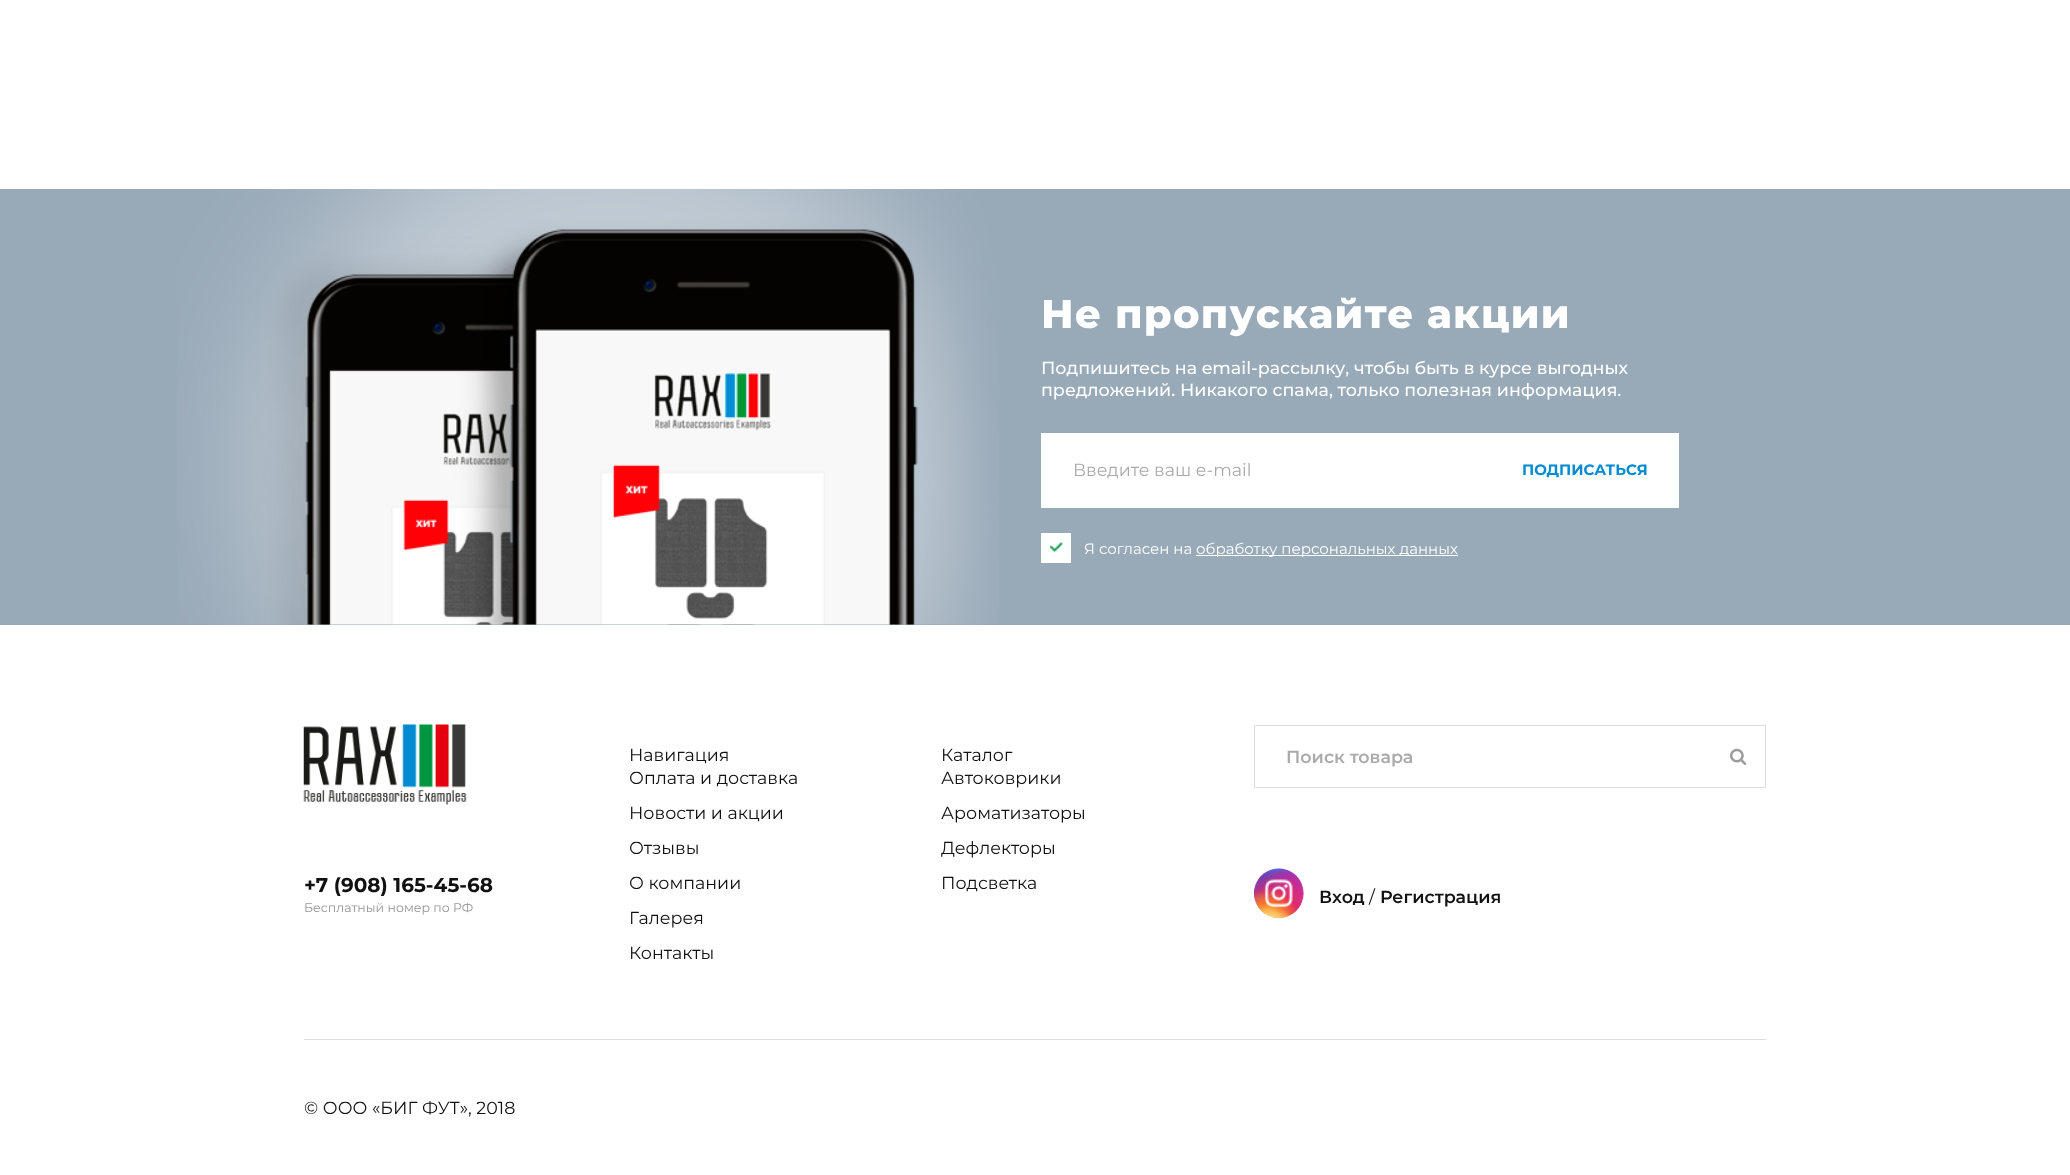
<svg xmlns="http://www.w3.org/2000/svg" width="2070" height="1175">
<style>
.a{font:800 40px Montserrat;letter-spacing:1.25px;fill:#fff}
.b{font:500 17.5px Montserrat;fill:#fff}
.c{font:17.5px Montserrat;fill:#aaa}
.d{font:bold 15px Montserrat;fill:#008bd2}
.e{font:15px Montserrat;fill:#fff}
.f{font:bold 20px Montserrat;fill:#111}
.g{font:12.5px Montserrat;fill:#969696}
.h{font:17.5px Montserrat;fill:#111}
.i{font:600 17.5px Montserrat;fill:#aaa}
.j{font:600 17.5px Montserrat;fill:#111}
</style>
<rect width="100%" height="100%" fill="#fff"/>
<path fill="#98a9b8" d="M0 189h2070v436H0z"/>
<image href="1.png" x="177" y="189" width="822" height="436"/>
<path fill="#fff" d="M1041 433h638v75H1041z"/>
<path fill="#fff" d="M1041 533h30v30H1041z"/>
<image href="2.png" x="1050" y="542" width="13" height="10"/>
<path fill="#fff" d="M1196 555h262v1H1196z"/>
<image href="3.png" x="303" y="724" width="164" height="81"/>
<path fill="none" stroke="#ddd" d="M1254.5 725.5h511v62H1254.5z"/>
<image href="4.png" x="1730" y="748" width="17" height="17"/>
<image href="5.png" x="1253" y="868" width="51" height="51"/>
<path fill="#ddd" d="M304 1039h1462v1H304z"/>
<text class="a" x="1041" y="328">Не пропускайте акции</text>
<text class="b" x="1041" y="374">Подпишитесь на email-рассылку, чтобы быть в курсе выгодных</text>
<text class="b" x="1041" y="396">предложений. Никакого спама, только полезная информация.</text>
<text class="c" x="1073" y="476">Введите ваш e-mail</text>
<text class="d" x="1522" y="475">ПОДПИСАТЬСЯ</text>
<text class="e" x="1084" y="554">Я согласен на</text>
<text class="e" x="1196" y="554">обработку персональных данных</text>
<text class="f" x="304" y="892">+7 (908) 165-45-68</text>
<text class="g" x="304" y="912">Бесплатный номер по РФ</text>
<text class="h" x="629" y="761">Навигация</text>
<text class="h" x="629" y="784">Оплата и доставка</text>
<text class="h" x="629" y="819">Новости и акции</text>
<text class="h" x="629" y="854">Отзывы</text>
<text class="h" x="629" y="889">О компании</text>
<text class="h" x="629" y="924">Галерея</text>
<text class="h" x="629" y="959">Контакты</text>
<text class="h" x="941" y="761">Каталог</text>
<text class="h" x="941" y="784">Автоковрики</text>
<text class="h" x="941" y="819">Ароматизаторы</text>
<text class="h" x="941" y="854">Дефлекторы</text>
<text class="h" x="941" y="889">Подсветка</text>
<text class="i" x="1286" y="763">Поиск товара</text>
<text class="j" x="1319" y="903">Вход</text>
<text class="h" x="1369" y="903">/</text>
<text class="j" x="1380" y="903">Регистрация</text>
<text class="h" x="304" y="1114">© ООО «БИГ ФУТ», 2018</text>
</svg>
